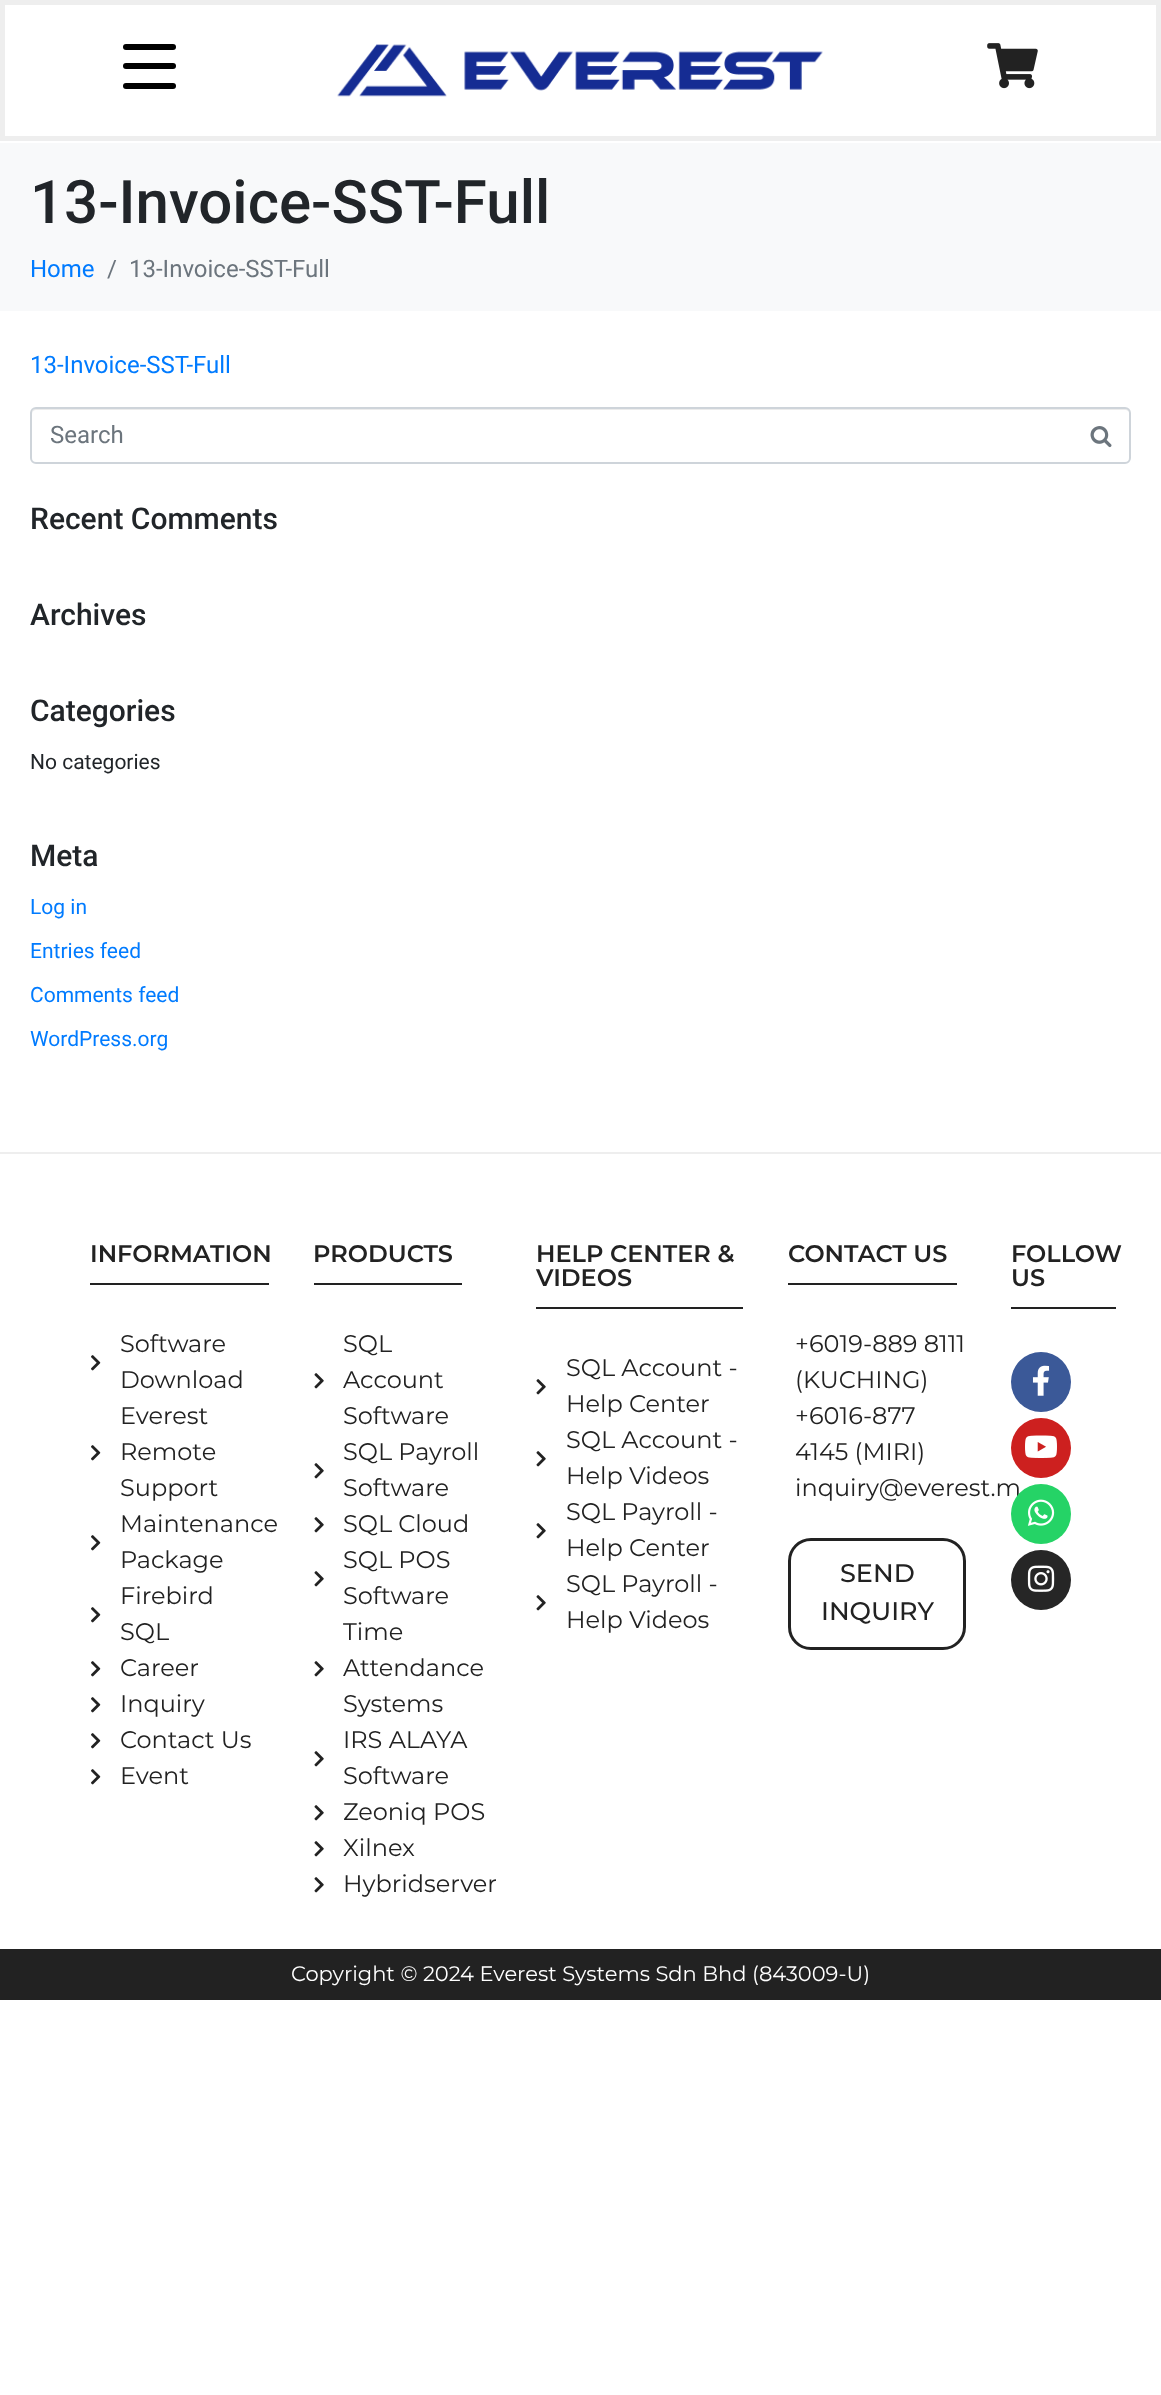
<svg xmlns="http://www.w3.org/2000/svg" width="1161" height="2395">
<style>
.a{font:500 60px Roboto;fill:#212529}
.b{font:24px Roboto;fill:#007bff}
.c{font:24px Roboto;fill:#6c757d}
.d{font:500 30px Roboto;fill:#212529}
.e{font:21px Roboto;fill:#212529}
.f{font:21px Roboto;fill:#007bff}
.g{font:600 24px Montserrat;fill:#222}
.h{font:24px Montserrat;fill:#222}
.i{font:500 25.5px Montserrat;fill:#222}
.j{font:21px Montserrat;fill:#fff}
</style>
<rect width="100%" height="100%" fill="#fff"/>
<path fill="none" stroke="#eee" stroke-width="5" d="M2.5 2.5h1156v136H2.5z"/>
<rect fill="#000" x="123" y="63" width="53" height="6" rx="3"/>
<rect fill="#000" x="123" y="44" width="53" height="6" rx="3"/>
<rect fill="#000" x="123" y="83" width="53" height="6" rx="3"/>
<image href="1.png" x="337" y="44" width="486" height="53"/>
<image href="2.png" x="987" y="43" width="51" height="46"/>
<path fill="#f8f9fa" d="M0 143h1161v168H0z"/>
<path fill="#ececec" d="M36 410h1089c2 0 5 2 5 4c0-3-2-6-5-6h-1088c-3 0-5 3-5 6c0-2 2-4 4-4z"/>
<rect fill="none" stroke="#ced4da" stroke-width="2" x="31" y="408" width="1099" height="55" rx="5"/>
<image href="3.png" x="1090" y="426" width="22" height="22"/>
<path fill="#eee" d="M0 1152h1161v2H0z"/>
<path fill="#222" d="M90 1283h179v2H90z"/>
<image href="4.png" x="91" y="1355" width="10" height="16"/>
<image href="4.png" x="91" y="1445" width="10" height="16"/>
<image href="4.png" x="91" y="1535" width="10" height="16"/>
<image href="4.png" x="91" y="1607" width="10" height="16"/>
<image href="4.png" x="91" y="1661" width="10" height="16"/>
<image href="4.png" x="91" y="1697" width="10" height="16"/>
<image href="4.png" x="91" y="1733" width="10" height="16"/>
<image href="4.png" x="91" y="1769" width="10" height="16"/>
<path fill="#222" d="M314 1283h148v2H314z"/>
<image href="5.png" x="314" y="1373" width="10" height="16"/>
<image href="5.png" x="314" y="1463" width="10" height="16"/>
<image href="5.png" x="314" y="1517" width="10" height="16"/>
<image href="5.png" x="314" y="1571" width="10" height="16"/>
<image href="5.png" x="314" y="1661" width="10" height="16"/>
<image href="5.png" x="314" y="1751" width="10" height="16"/>
<image href="5.png" x="314" y="1805" width="10" height="16"/>
<image href="5.png" x="314" y="1841" width="10" height="16"/>
<image href="5.png" x="314" y="1877" width="10" height="16"/>
<path fill="#222" d="M536 1307h207v2H536z"/>
<image href="5.png" x="536" y="1379" width="10" height="16"/>
<image href="5.png" x="536" y="1451" width="10" height="16"/>
<image href="5.png" x="536" y="1523" width="10" height="16"/>
<image href="5.png" x="536" y="1595" width="10" height="16"/>
<path fill="#222" d="M788 1283h169v2H788z"/>
<rect fill="none" stroke="#222" stroke-width="3" x="789.5" y="1539.5" width="175" height="109" rx="21.5"/>
<path fill="#222" d="M1011 1307h105v2H1011z"/>
<circle fill="#3b5998" cx="1041" cy="1382" r="30"/>
<image href="6.png" x="1032" y="1365" width="18" height="31"/>
<circle fill="#cd201f" cx="1041" cy="1448" r="30"/>
<image href="7.png" x="1025" y="1435" width="32" height="23"/>
<circle fill="#262626" cx="1041" cy="1580" r="30"/>
<image href="9.png" x="1027" y="1565" width="28" height="27"/>
<path fill="#222" d="M0 1949h1161v51H0z"/>
<text class="a" x="30" y="223">13-Invoice-SST-Full</text>
<text class="b" x="30" y="277">Home</text>
<text class="c" x="107" y="277">/</text>
<text class="c" x="129" y="277">13-Invoice-SST-Full</text>
<text class="b" x="30" y="373">13-Invoice-SST-Full</text>
<text class="c" x="50" y="443">Search</text>
<text class="d" x="30" y="529">Recent Comments</text>
<text class="d" x="30" y="625">Archives</text>
<text class="d" x="30" y="721">Categories</text>
<text class="e" x="30" y="769">No categories</text>
<text class="d" x="30" y="866">Meta</text>
<text class="f" x="30" y="914">Log in</text>
<text class="f" x="30" y="958">Entries feed</text>
<text class="f" x="30" y="1002">Comments feed</text>
<text class="f" x="30" y="1046">WordPress.org</text>
<text class="g" x="90" y="1262">INFORMATION</text>
<text class="h" x="120" y="1352">Software</text>
<text class="h" x="120" y="1388">Download</text>
<text class="h" x="120" y="1424">Everest</text>
<text class="h" x="120" y="1460">Remote</text>
<text class="h" x="120" y="1496">Support</text>
<text class="h" x="120" y="1532">Maintenance</text>
<text class="h" x="120" y="1568">Package</text>
<text class="h" x="120" y="1604">Firebird</text>
<text class="h" x="120" y="1640">SQL</text>
<text class="h" x="120" y="1676">Career</text>
<text class="h" x="120" y="1712">Inquiry</text>
<text class="h" x="120" y="1748">Contact Us</text>
<text class="h" x="120" y="1784">Event</text>
<text class="g" x="313" y="1262">PRODUCTS</text>
<text class="h" x="343" y="1352">SQL</text>
<text class="h" x="343" y="1388">Account</text>
<text class="h" x="343" y="1424">Software</text>
<text class="h" x="343" y="1460">SQL Payroll</text>
<text class="h" x="343" y="1496">Software</text>
<text class="h" x="343" y="1532">SQL Cloud</text>
<text class="h" x="343" y="1568">SQL POS</text>
<text class="h" x="343" y="1604">Software</text>
<text class="h" x="343" y="1640">Time</text>
<text class="h" x="343" y="1676">Attendance</text>
<text class="h" x="343" y="1712">Systems</text>
<text class="h" x="343" y="1748">IRS ALAYA</text>
<text class="h" x="343" y="1784">Software</text>
<text class="h" x="343" y="1820">Zeoniq POS</text>
<text class="h" x="343" y="1856">Xilnex</text>
<text class="h" x="343" y="1892">Hybridserver</text>
<text class="g" x="536" y="1262">HELP CENTER &amp;</text>
<text class="g" x="536" y="1286">VIDEOS</text>
<text class="h" x="566" y="1376">SQL Account -</text>
<text class="h" x="566" y="1412">Help Center</text>
<text class="h" x="566" y="1448">SQL Account -</text>
<text class="h" x="566" y="1484">Help Videos</text>
<text class="h" x="566" y="1520">SQL Payroll -</text>
<text class="h" x="566" y="1556">Help Center</text>
<text class="h" x="566" y="1592">SQL Payroll -</text>
<text class="h" x="566" y="1628">Help Videos</text>
<text class="g" x="788" y="1262">CONTACT US</text>
<text class="h" x="795" y="1352">+6019-889 8111</text>
<text class="h" x="795" y="1388">(KUCHING)</text>
<text class="h" x="795" y="1424">+6016-877</text>
<text class="h" x="795" y="1460">4145 (MIRI)</text>
<text class="h" x="795" y="1496">inquiry@everest.m</text>
<text class="i" x="840" y="1582">SEND</text>
<text class="i" x="821" y="1620">INQUIRY</text>
<text class="g" x="1011" y="1262">FOLLOW</text>
<text class="g" x="1011" y="1286">US</text>
<circle fill="#25d366" cx="1041" cy="1514" r="30"/>
<image href="8.png" x="1027" y="1499" width="28" height="27"/>
<text class="j" x="291" y="1981">Copyright © 2024 Everest Systems Sdn Bhd (843009-U)</text>
</svg>
